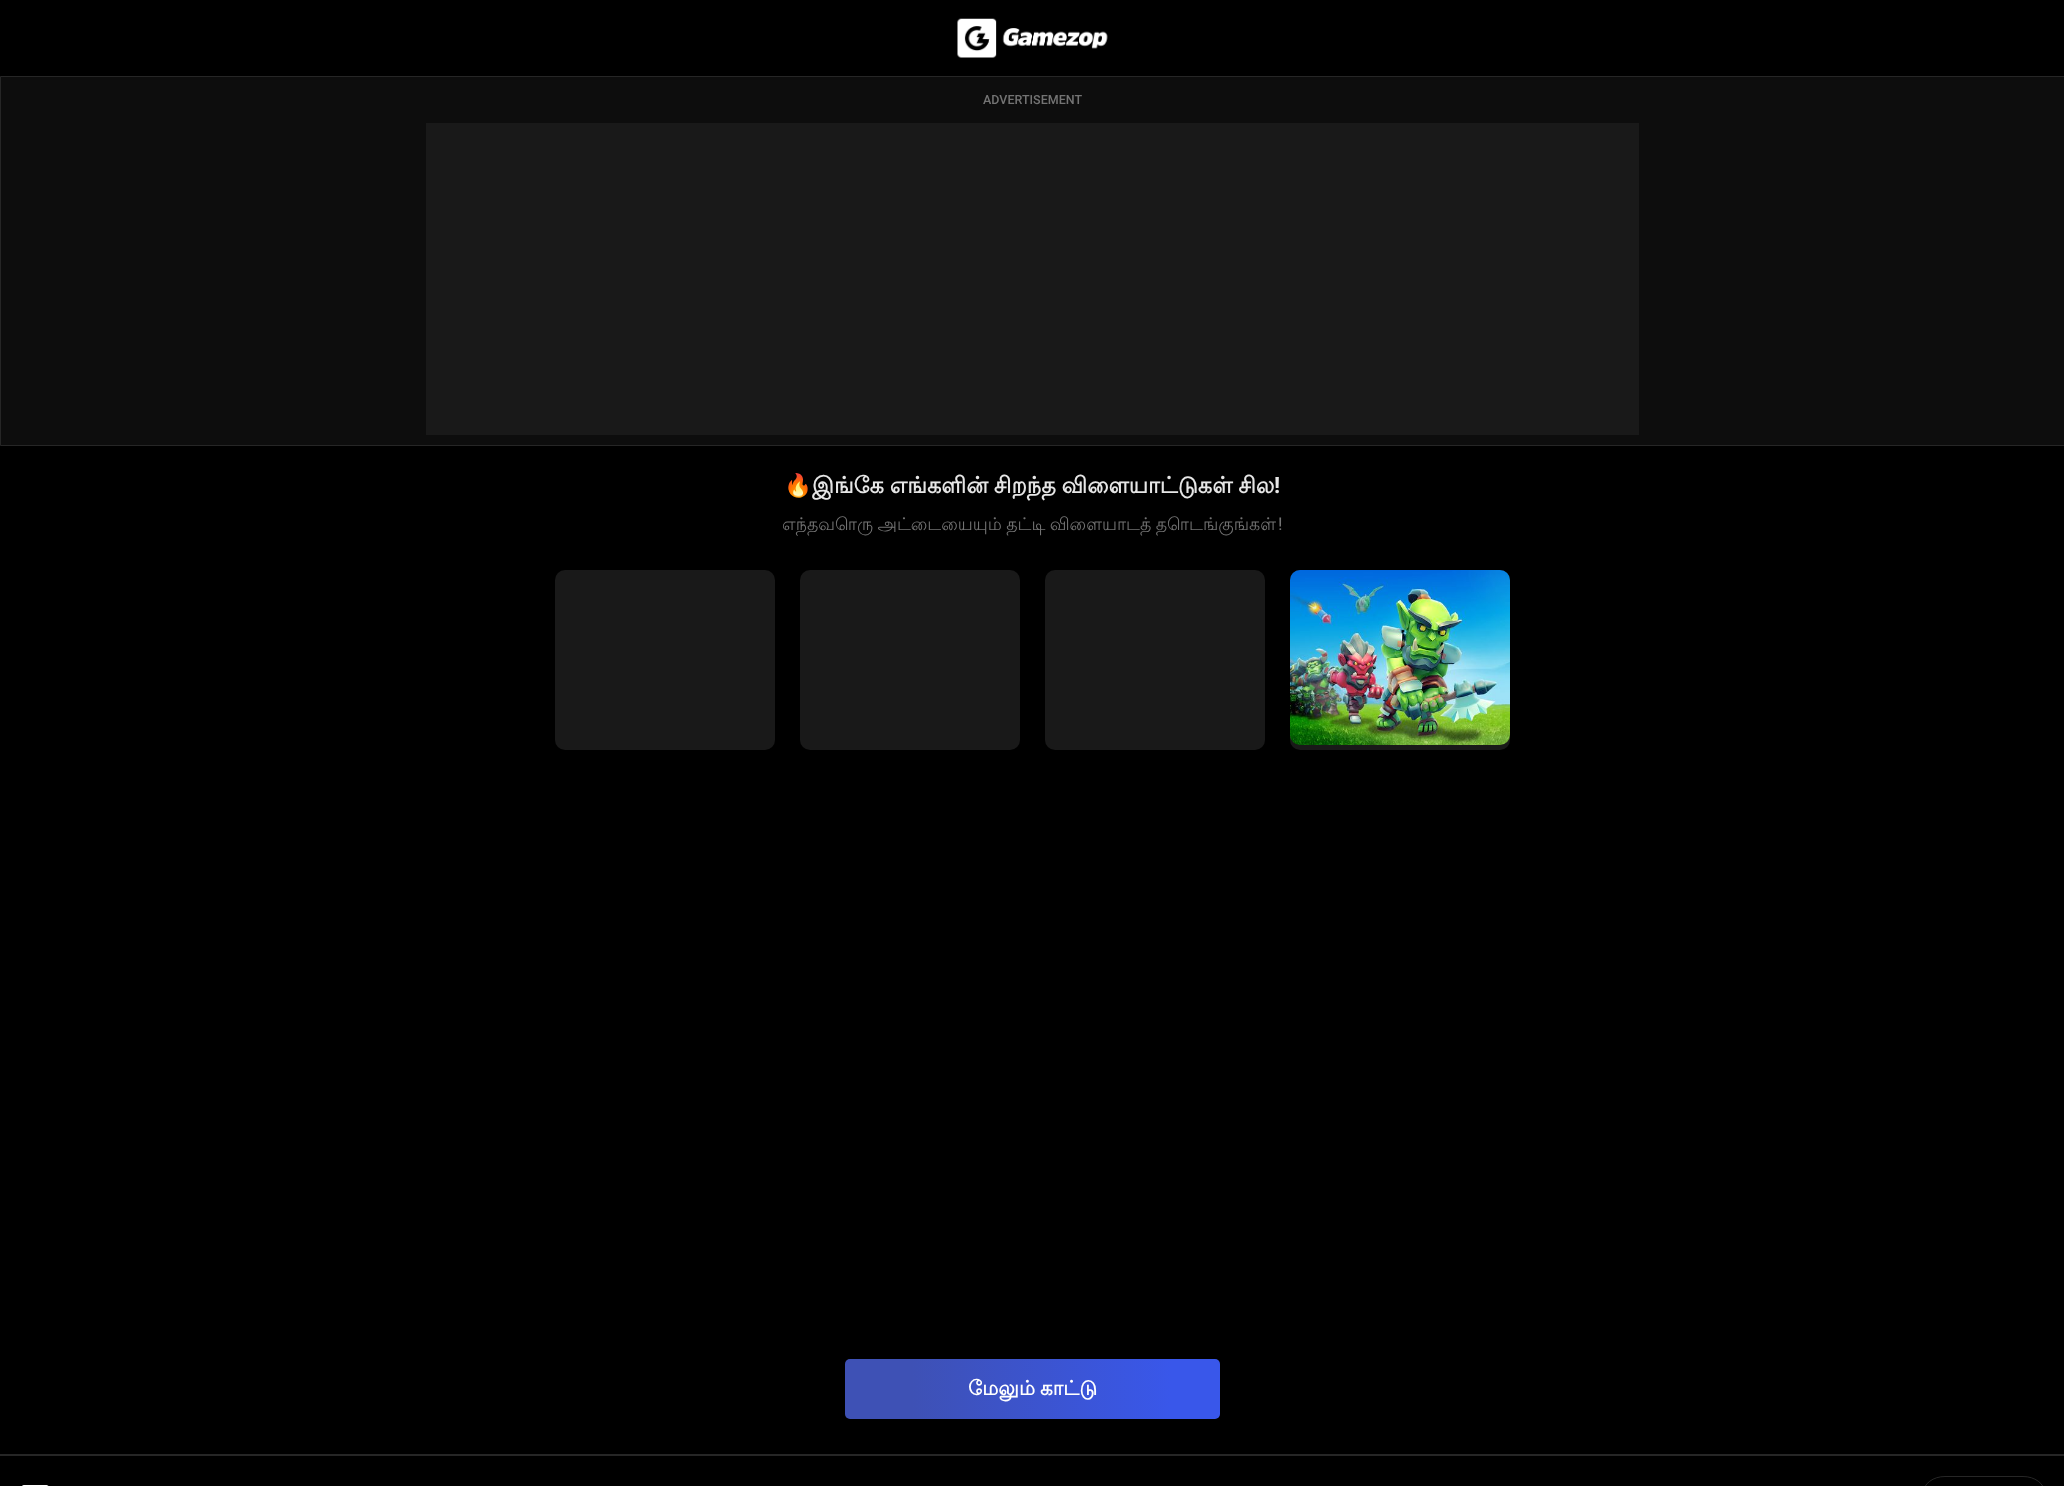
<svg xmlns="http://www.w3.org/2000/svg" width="2064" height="1486">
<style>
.a{font:500 12.5px Roboto;fill:#737373}
.b{font:bold 22.5px Noto Color Emoji;fill:#e6e6e6}
.c{font:bold 22.5px Lohit Tamil;fill:#e6e6e6}
.d{font:bold 22.5px Roboto;fill:#e6e6e6}
.e{font:17.5px Lohit Tamil;fill:#737373}
.f{font:17.5px Roboto;fill:#737373}
.g{font:bold 20px Lohit Tamil;fill:#fff}
</style>
<defs>
<linearGradient id="g1" gradientUnits="userSpaceOnUse" x1="845" y1="1389" x2="1220" y2="1389"><stop offset="0.18" stop-color="#3e51b5"/><stop offset="0.87" stop-color="#3957ea"/></linearGradient>
</defs>
<rect width="100%" height="100%" fill="#000"/>
<image href="1.png" x="957" y="18" width="151" height="40"/>
<path fill="#0d0d0d" stroke="#262626" d="M0.5 76.5h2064v369H0.5z"/>
<path fill="#191919" d="M426 123h1213v312H426z"/>
<rect fill="#191919" x="555" y="570" width="220" height="180" rx="10"/>
<rect fill="#191919" x="800" y="570" width="220" height="180" rx="10"/>
<rect fill="#191919" x="1045" y="570" width="220" height="180" rx="10"/>
<rect fill="#191919" x="1290" y="570" width="220" height="180" rx="10"/>
<rect fill="#191919" x="1290" y="570" width="220" height="175" rx="10"/>
<image href="2.png" x="1290" y="570" width="220" height="175"/>
<rect fill="url(#g1)" x="845" y="1359" width="375" height="60" rx="5"/>
<path fill="#262626" d="M0 1454h2064v2H0z"/>
<image href="3.png" x="22" y="1485" width="27" height="1"/>
<rect fill="none" stroke="#262626" x="1923.5" y="1476.5" width="121" height="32" rx="21.5"/>
<text class="a" x="983" y="104">ADVERTISEMENT</text>
<text class="b" x="784" y="493">🔥</text>
<text class="c" x="812" y="493" word-spacing="-1">இங்கே எங்களின் சிறந்த விளையாட்டுகள் சில</text>
<text class="d" x="1274" y="493">!</text>
<text class="e" x="782" y="530" word-spacing="-1">எந்தவொரு அட்டையையும் தட்டி விளையாடத் தொடங்குங்கள்</text>
<text class="f" x="1278" y="530">!</text>
<text class="g" x="968" y="1395" word-spacing="-1">மேலும் காட்டு</text>
</svg>
